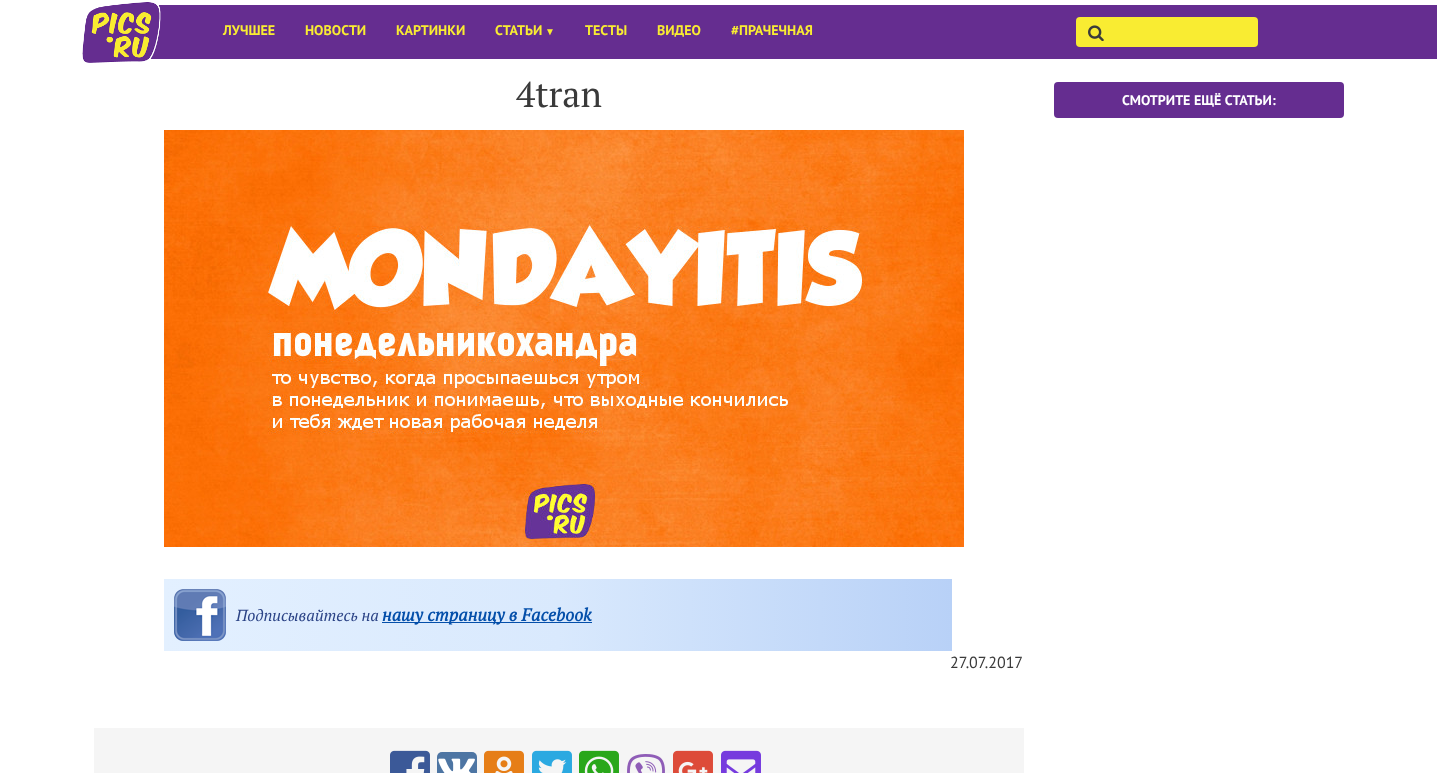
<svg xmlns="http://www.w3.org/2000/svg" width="1437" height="773">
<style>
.a{font:bold 14px PT Sans;fill:#f9ec32}
.b{font:bold 10px Liberation Sans;fill:#f9ec32}
.c{font:36px PT Serif;fill:#3a3a3a}
.d{font:italic 16px PT Serif;fill:#2b4386}
.e{font:italic bold 17.6px PT Serif;fill:#044faa}
.f{font:16px PT Sans;fill:#3a3a3a}
.g{font:bold 14px PT Sans;fill:#fff}
</style>
<defs>
<linearGradient id="g1" gradientUnits="userSpaceOnUse" x1="164" y1="615" x2="952" y2="615"><stop offset="0" stop-color="#e3f0ff"/><stop offset="0.5" stop-color="#d9e9fd"/><stop offset="1" stop-color="#b8d1f7"/></linearGradient>
</defs>
<rect width="100%" height="100%" fill="#fff"/>
<image href="1.png" x="82" y="2" width="1355" height="61"/>
<rect fill="#f9ec32" x="1076" y="17" width="182" height="30" rx="4"/>
<image href="2.png" x="1088" y="25" width="16" height="16"/>
<image href="3.png" x="164" y="130" width="800" height="417"/>
<path fill="url(#g1)" d="M164 579h788v72H164z"/>
<image href="4.png" x="174" y="589" width="52" height="52"/>
<path fill="#044faa" d="M382 622h210v1H382z"/>
<path fill="#f5f5f5" d="M94 728h930v45H94z"/>
<image href="5.png" x="390" y="750" width="40" height="23"/>
<rect fill="#4d75a3" x="437" y="752" width="40" height="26" rx="5"/>
<image href="6.png" x="438" y="758" width="37" height="15"/>
<image href="7.png" x="484" y="750" width="40" height="23"/>
<image href="8.png" x="532" y="750" width="40" height="23"/>
<image href="9.png" x="579" y="750" width="40" height="23"/>
<image href="10.png" x="627" y="754" width="38" height="19"/>
<image href="11.png" x="673" y="750" width="40" height="23"/>
<image href="12.png" x="721" y="750" width="40" height="23"/>
<rect fill="#652d90" x="1054" y="82" width="290" height="36" rx="4"/>
<text class="a" x="223" y="35">ЛУЧШЕЕ</text>
<text class="a" x="305" y="35">НОВОСТИ</text>
<text class="a" x="396" y="35">КАРТИНКИ</text>
<text class="a" x="495" y="35">СТАТЬИ</text>
<text class="b" x="545" y="35">▼</text>
<text class="a" x="585" y="35">ТЕСТЫ</text>
<text class="a" x="657" y="35">ВИДЕО</text>
<text class="a" x="731" y="35">#ПРАЧЕЧНАЯ</text>
<text class="c" x="516" y="107">4tran</text>
<text class="d" x="236" y="621">Подписывайтесь на</text>
<text class="e" x="382" y="621">нашу страницу в Facebook</text>
<text class="f" x="950" y="668">27.07.2017</text>
<text class="g" x="1122" y="105">СМОТРИТЕ ЕЩЁ СТАТЬИ:</text>
</svg>
